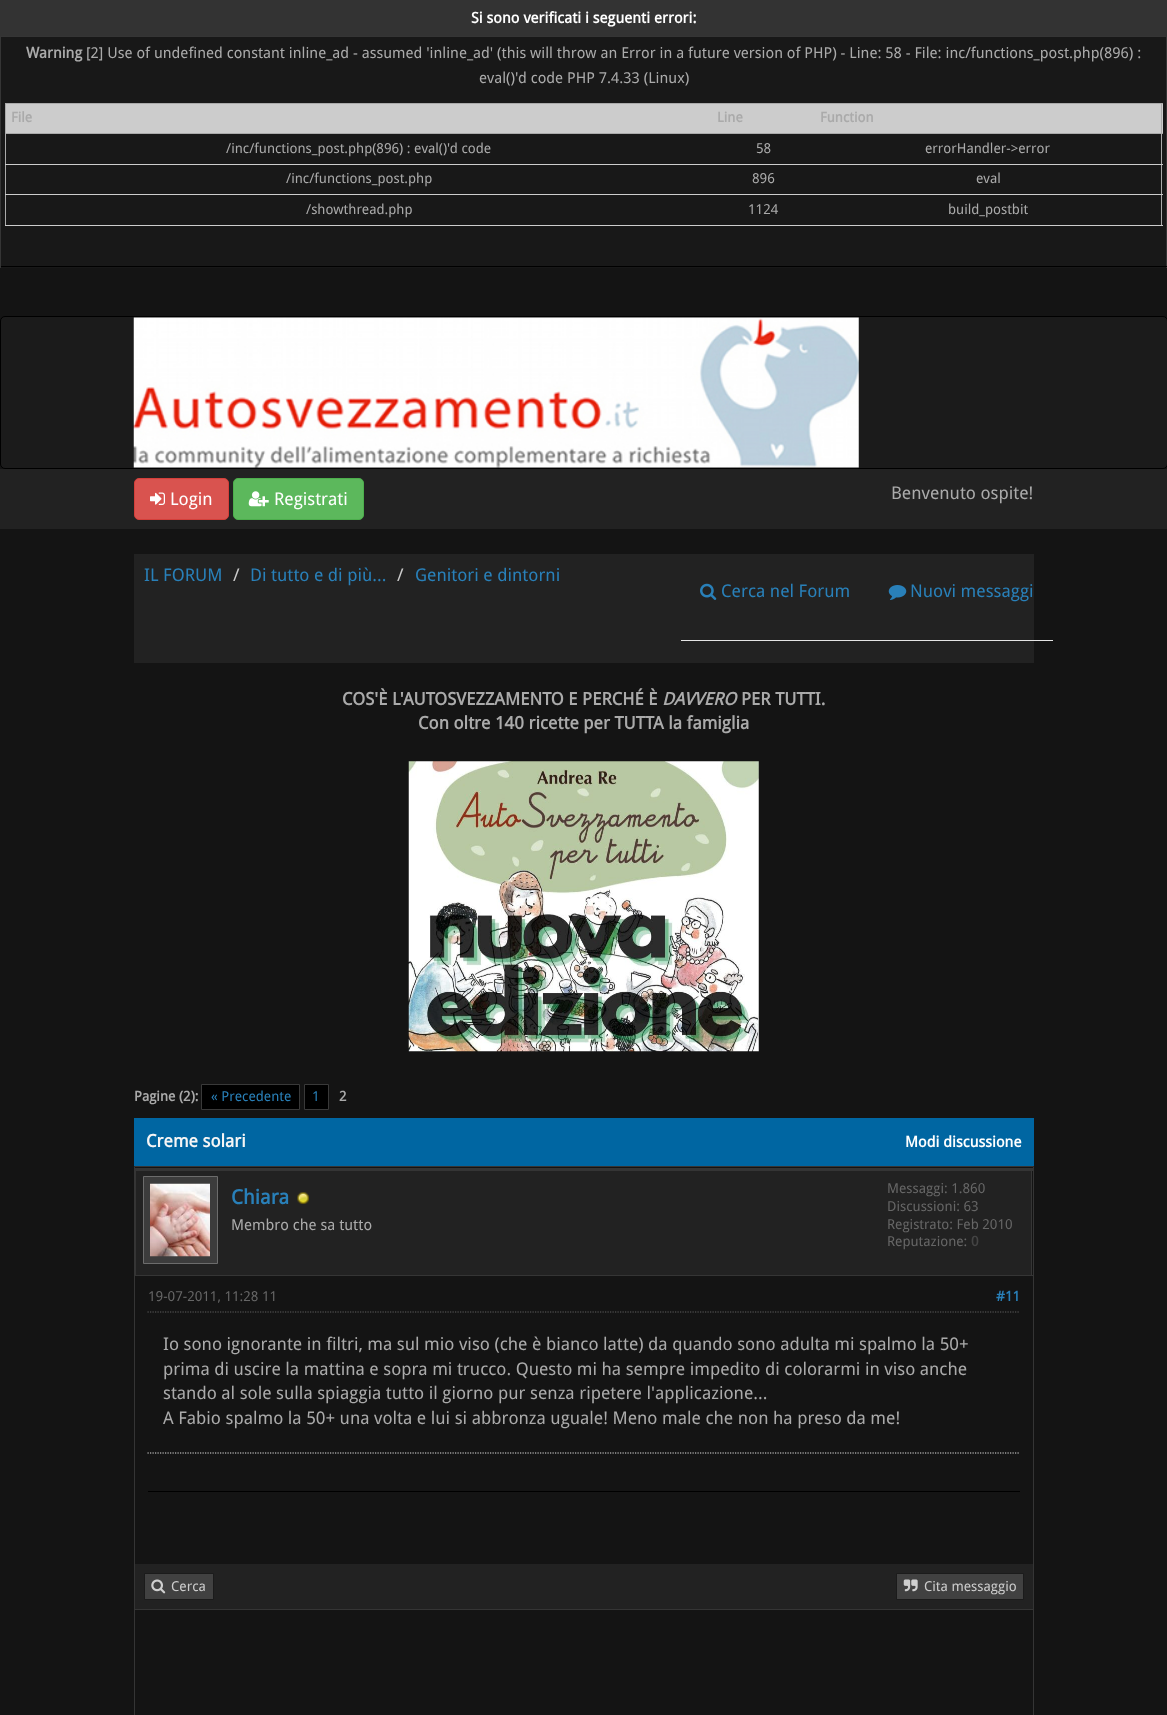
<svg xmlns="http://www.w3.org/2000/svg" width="1167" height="1715">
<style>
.a{font:bold 15px Droid Sans;fill:#fff}
.b{font:bold 15px Droid Sans;fill:#aaa}
.c{font:15px Droid Sans;fill:#aaa}
.d{font:bold 13.75px Droid Sans;fill:#aaa}
.e{font:13.75px Droid Sans;fill:#aaa}
.f{font:17.5px Droid Sans;fill:#fff}
.g{font:17.5px Droid Sans;fill:#aaa}
.h{font:17.5px Droid Sans;fill:#2980b9}
.i{font:17.5px Droid Sans;fill:#ccc}
.j{font:bold 17.5px Droid Sans;fill:#aaa}
.k{font:italic bold 17.5px Droid Sans;fill:#aaa}
.l{font:13.75px Droid Sans;fill:#2980b9}
.m{font:bold 17.5px Droid Sans;fill:#f5f5f5}
.n{font:bold 20px Droid Sans;fill:#2980b9}
.o{font:13.75px Droid Sans;fill:#666}
.p{font:bold 13.75px Droid Sans;fill:#444}
.q{font:bold 13.75px Droid Sans;fill:#2980b9}
.r{font:13.75px Droid Sans;fill:#ccc}
</style>
<rect width="100%" height="100%" fill="#141414"/>
<path fill="#333" d="M0 0h1167v36H0z"/>
<path fill="#181818" d="M1 37h1165v231H1z"/>
<path fill="#353535" d="M0 36h1167v1H0z"/>
<path fill="#353535" d="M1166 36h1v232H1166z"/>
<path fill="#000" d="M0 266h1167v1H0z"/>
<path fill="#353535" d="M0 36h1v232H0z"/>
<path fill="#aaa" d="M5 103h1158v1H5z"/>
<path fill="#ccc" d="M6 104h1157v29H6z"/>
<path fill="#aaa" d="M1161 103h1v123H1161z"/>
<path fill="#aaa" d="M5 103h1v123H5z"/>
<path fill="#aaa" d="M5 133h1158v1H5z"/>
<path fill="#ccc" d="M5 164h1158v1H5z"/>
<path fill="#ccc" d="M5 194h1158v1H5z"/>
<path fill="#ccc" d="M5 225h1158v1H5z"/>
<rect fill="#1b1b1b" stroke="#000" x="0.5" y="316.5" width="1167" height="152" rx="4.5"/>
<image href="1.png" x="133" y="317" width="726" height="151"/>
<path fill="#222" d="M0 469h1167v60H0z"/>
<rect fill="#d9534f" stroke="#d43f3a" x="134.5" y="478.5" width="94" height="41" rx="4.5"/>
<image href="2.png" x="150" y="492" width="15" height="13"/>
<rect fill="#5cb85c" stroke="#4cae4c" x="233.5" y="478.5" width="130" height="41" rx="4.5"/>
<image href="3.png" x="248" y="491" width="21" height="16"/>
<path fill="#222" d="M134 554h900v109H134z"/>
<image href="4.png" x="700" y="583" width="17" height="17"/>
<image href="5.png" x="888" y="585" width="19" height="15"/>
<path fill="#e5e5e5" d="M681 640h372v1H681z"/>
<image href="6.png" x="408" y="761" width="351" height="291"/>
<path fill="#000" stroke="#393939" d="M201.5 1084.5h98v25H201.5z"/>
<path fill="#000" stroke="#393939" d="M304.5 1084.5h24v25H304.5z"/>
<path fill="#0066a2" d="M134 1118h900v48H134z"/>
<path fill="none" stroke="#353535" d="M134.5 1166.5h899v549H134.5z"/>
<path fill="#222" d="M136 1171h895v104H136z"/>
<path fill="#353535" d="M135 1168h898v3H135z"/>
<path fill="#353535" d="M1031 1168h1v108H1031z"/>
<path fill="#353535" d="M135 1275h898v1H135z"/>
<path fill="#353535" d="M135 1168h1v108H135z"/>
<path fill="#3c3c3c" stroke="#6c6c6c" d="M143.5 1176.5h74v87H143.5z"/>
<image href="7.png" x="150" y="1183" width="60" height="74"/>
<image href="8.png" x="297" y="1192" width="12" height="12"/>
<path fill="none" stroke="#5f5f5f" stroke-width="1.2" stroke-dasharray="1.25 1.25" d="M147.5 1312h872.5"/>
<path fill="none" stroke="#ddd" stroke-width="1.2" stroke-dasharray="1.25 1.25" d="M147.5 1453h872.5"/>
<path fill="#000" d="M148 1491h872v1H148z"/>
<path fill="#222" d="M135 1564h898v45H135z"/>
<path fill="#353535" d="M135 1609h898v1H135z"/>
<path fill="#414141" stroke="#1b1b1b" d="M144.5 1573.5h69v26H144.5z"/>
<image href="9.png" x="151" y="1579" width="15" height="15"/>
<path fill="#414141" stroke="#1b1b1b" d="M896.5 1573.5h127v26H896.5z"/>
<image href="10.png" x="903" y="1579" width="15" height="13"/>
<text class="a" x="471" y="23">Si sono verificati i seguenti errori:</text>
<text class="b" x="26" y="58">Warning</text>
<text class="c" x="86" y="58">[2] Use of undefined constant inline_ad - assumed 'inline_ad' (this will throw an Error in a future version of PHP) - Line: 58 - File: inc/functions_post.php(896) :</text>
<text class="c" x="479" y="83">eval()'d code PHP 7.4.33 (Linux)</text>
<text class="d" x="11" y="122">File</text>
<text class="d" x="717" y="122">Line</text>
<text class="d" x="820" y="122">Function</text>
<text class="e" x="226" y="153">/inc/functions_post.php(896) : eval()'d code</text>
<text class="e" x="756" y="153">58</text>
<text class="e" x="925" y="153">errorHandler-&gt;error</text>
<text class="e" x="286" y="183">/inc/functions_post.php</text>
<text class="e" x="752" y="183">896</text>
<text class="e" x="976" y="183">eval</text>
<text class="e" x="306" y="214">/showthread.php</text>
<text class="e" x="748" y="214">1124</text>
<text class="e" x="948" y="214">build_postbit</text>
<text class="f" x="170" y="505">Login</text>
<text class="f" x="274" y="505">Registrati</text>
<text class="g" x="891" y="499">Benvenuto ospite!</text>
<text class="h" x="144" y="581">IL FORUM</text>
<text class="i" x="233" y="581">/</text>
<text class="h" x="250" y="581">Di tutto e di più...</text>
<text class="i" x="397" y="581">/</text>
<text class="h" x="415" y="581">Genitori e dintorni</text>
<text class="h" x="721" y="597">Cerca nel Forum</text>
<text class="h" x="910" y="597">Nuovi messaggi</text>
<text class="j" x="342" y="705">COS'È L'AUTOSVEZZAMENTO E PERCHÉ È</text>
<text class="k" x="662" y="705">DAVVERO</text>
<text class="j" x="741" y="705">PER TUTTI.</text>
<text class="j" x="418" y="729">Con oltre 140 ricette per TUTTA la famiglia</text>
<text class="d" x="134" y="1101">Pagine (2):</text>
<text class="l" x="211" y="1101">« Precedente</text>
<text class="l" x="312" y="1101">1</text>
<text class="d" x="339" y="1101">2</text>
<text class="m" x="146" y="1147">Creme solari</text>
<text class="a" x="905" y="1147">Modi discussione</text>
<text class="n" x="231" y="1204">Chiara</text>
<text class="c" x="231" y="1230">Membro che sa tutto</text>
<text class="o" x="887" y="1193">Messaggi: 1.860</text>
<text class="o" x="887" y="1211">Discussioni: 63</text>
<text class="o" x="887" y="1229">Registrato: Feb 2010</text>
<text class="o" x="887" y="1246">Reputazione:</text>
<text class="p" x="971" y="1246">0</text>
<text class="o" x="148" y="1301">19-07-2011, 11:28 11</text>
<text class="q" x="996" y="1301">#11</text>
<text class="g" x="163" y="1350">Io sono ignorante in filtri, ma sul mio viso (che è bianco latte) da quando sono adulta mi spalmo la 50+</text>
<text class="g" x="163" y="1375">prima di uscire la mattina e sopra mi trucco. Questo mi ha sempre impedito di colorarmi in viso anche</text>
<text class="g" x="163" y="1399">stando al sole sulla spiaggia tutto il giorno pur senza ripetere l'applicazione...</text>
<text class="g" x="163" y="1424">A Fabio spalmo la 50+ una volta e lui si abbronza uguale! Meno male che non ha preso da me!</text>
<text class="r" x="171" y="1591">Cerca</text>
<text class="r" x="924" y="1591">Cita messaggio</text>
</svg>
